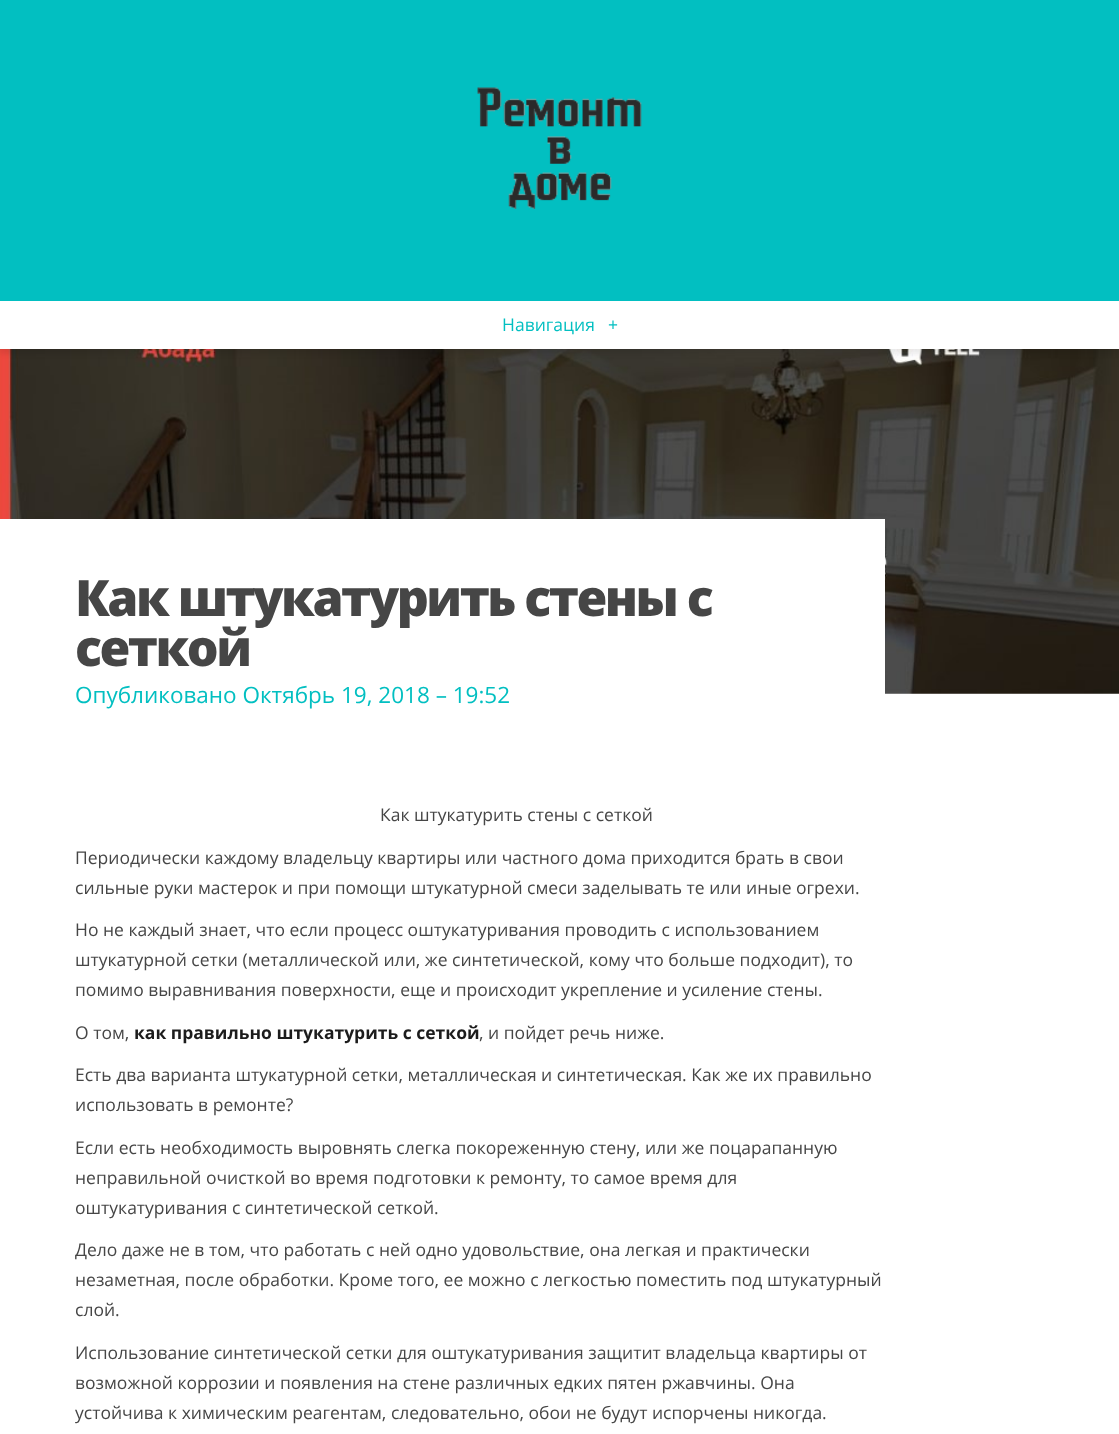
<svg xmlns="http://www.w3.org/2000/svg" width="1119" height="1434">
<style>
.a{font:17.5px Open Sans;fill:#02bfc1}
.b{font:800 50px Open Sans;letter-spacing:-2.5px;fill:#464646}
.c{font:22.5px Open Sans;fill:#02bfc1}
.d{font:17.5px Open Sans;fill:#464646}
.e{font:bold 17.5px Open Sans;fill:#1c1c1c}
</style>
<rect width="100%" height="100%" fill="#fff"/>
<image href="2.png" x="0" y="349" width="1119" height="345"/>
<path fill="#00000014" filter="blur(2.5px)" d="M0 5h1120v349H0z"/>
<path fill="#02bfc1" d="M0 0h1119v301H0z"/>
<image href="1.png" x="477" y="87" width="165" height="122"/>
<path fill="#fff" d="M0 301h1119v48H0z"/>
<path fill="#fff" d="M0 519h885v175H0z"/>
<text class="a" x="502" y="331">Навигация</text>
<text class="a" x="608" y="331">+</text>
<text class="b" x="75" y="616">Как штукатурить стены с</text>
<text class="b" x="75" y="666">сеткой</text>
<text class="c" x="75" y="703">Опубликовано Октябрь 19, 2018 – 19:52</text>
<text class="d" x="380" y="821">Как штукатурить стены с сеткой</text>
<text class="d" x="75" y="864">Периодически каждому владельцу квартиры или частного дома приходится брать в свои</text>
<text class="d" x="75" y="894">сильные руки мастерок и при помощи штукатурной смеси заделывать те или иные огрехи.</text>
<text class="d" x="75" y="936">Но не каждый знает, что если процесс оштукатуривания проводить с использованием</text>
<text class="d" x="75" y="966">штукатурной сетки (металлической или, же синтетической, кому что больше подходит), то</text>
<text class="d" x="75" y="996">помимо выравнивания поверхности, еще и происходит укрепление и усиление стены.</text>
<text class="d" x="75" y="1039">О том,</text>
<text class="e" x="134" y="1039">как правильно штукатурить с сеткой</text>
<text class="d" x="479" y="1039">, и пойдет речь ниже.</text>
<text class="d" x="75" y="1081">Есть два варианта штукатурной сетки, металлическая и синтетическая. Как же их правильно</text>
<text class="d" x="75" y="1111">использовать в ремонте?</text>
<text class="d" x="75" y="1154">Если есть необходимость выровнять слегка покореженную стену, или же поцарапанную</text>
<text class="d" x="75" y="1184">неправильной очисткой во время подготовки к ремонту, то самое время для</text>
<text class="d" x="75" y="1214">оштукатуривания с синтетической сеткой.</text>
<text class="d" x="75" y="1256">Дело даже не в том, что работать с ней одно удовольствие, она легкая и практически</text>
<text class="d" x="75" y="1286">незаметная, после обработки. Кроме того, ее можно с легкостью поместить под штукатурный</text>
<text class="d" x="75" y="1316">слой.</text>
<text class="d" x="75" y="1359">Использование синтетической сетки для оштукатуривания защитит владельца квартиры от</text>
<text class="d" x="75" y="1389">возможной коррозии и появления на стене различных едких пятен ржавчины. Она</text>
<text class="d" x="75" y="1419">устойчива к химическим реагентам, следовательно, обои не будут испорчены никогда.</text>
</svg>
